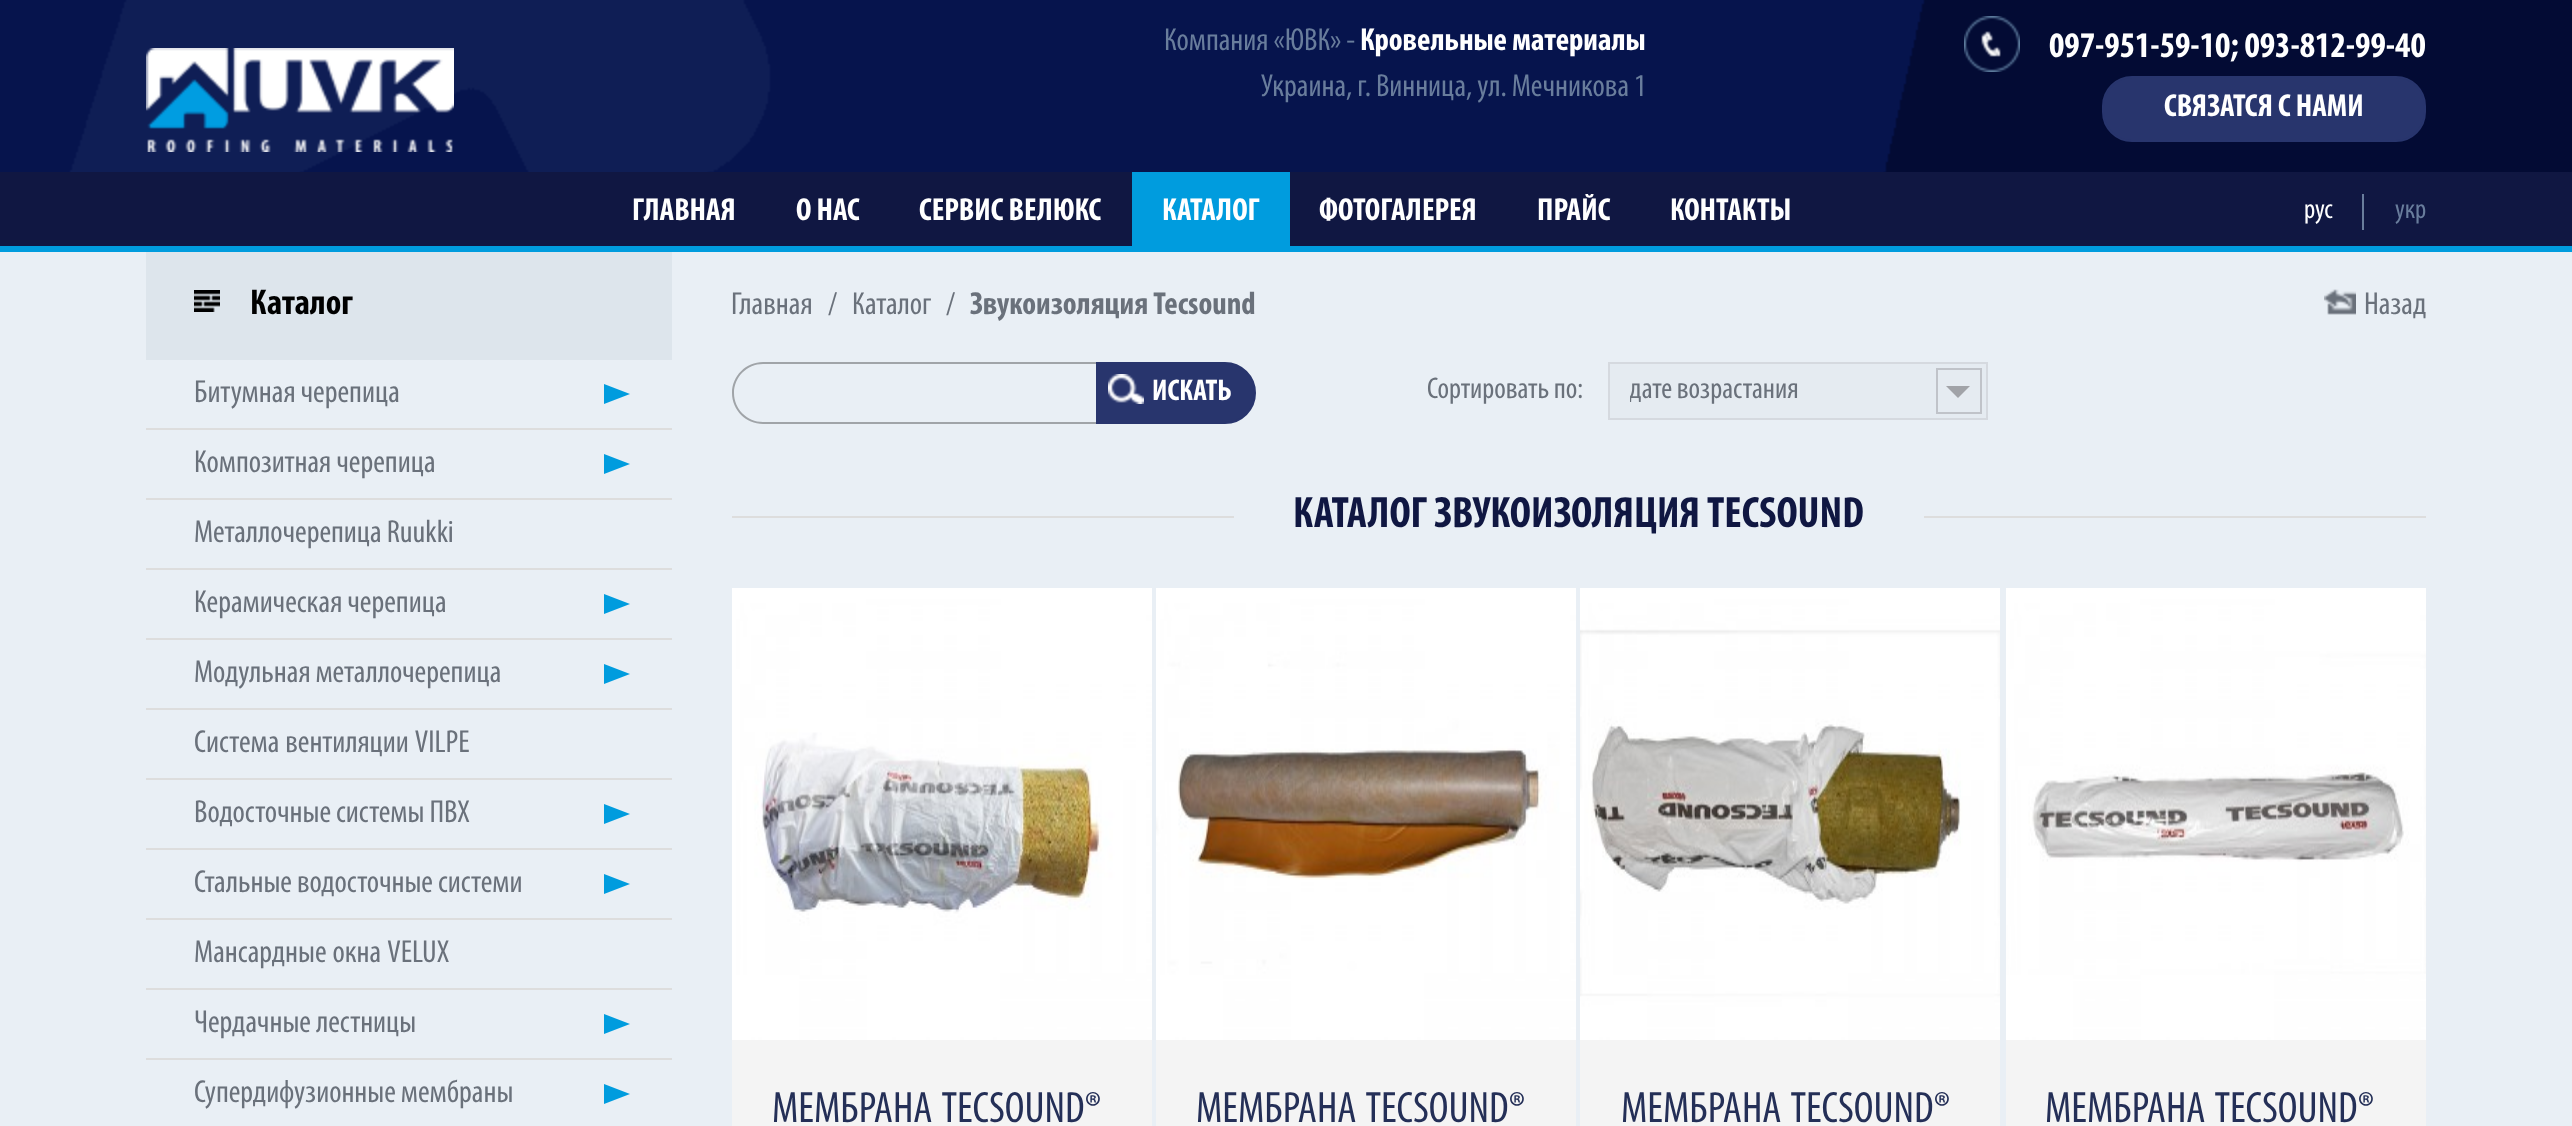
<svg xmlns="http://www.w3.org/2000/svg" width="2572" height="1126">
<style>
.a{font:32px Myriad;fill:#697d9c}
.b{font:bold 32px Myriad;fill:#fff}
.c{font:bold 36px Myriad;fill:#fff}
.d{font:28px Myriad;fill:#fff}
.e{font:28px Myriad;fill:#697d9c}
.f{font:bold 36px Myriad;fill:#000}
.g{font:32px Myriad;fill:#6a717b}
.h{font:bold 32px Myriad;fill:#6a717b}
.i{font:bold 30px Myriad;fill:#fff}
.j{font:30px Myriad;fill:#6a717b}
.k{font:bold 44px Myriad;fill:#101742}
.l{font:44px Myriad;fill:#242f57}
</style>
<defs>
<clipPath id="clip1"><path d="M1630 370h296v42H1630z"/></clipPath>
</defs>
<rect width="100%" height="100%" fill="#e9eff5"/>
<image href="1.png" x="0" y="0" width="2572" height="172"/>
<image href="2.png" x="146" y="48" width="308" height="104"/>
<image href="3.png" x="1964" y="16" width="56" height="56"/>
<rect fill="#28356d" stroke="#28356d" stroke-width="2" x="2103" y="77" width="322" height="64" rx="29"/>
<path fill="#101742" d="M0 172h2572v74H0z"/>
<path fill="#009cde" d="M0 246h2572v6H0z"/>
<path fill="#009cde" d="M1132 172h158v74H1132z"/>
<path fill="#697d9c" d="M2362 194h2v36H2362z"/>
<path fill="#dde5ec" d="M146 252h526v108H146z"/>
<image href="4.png" x="194" y="290" width="26" height="22"/>
<path fill="#009cde" d="M604 404v-20l26 10z"/>
<path fill="#ddd" d="M146 428h526v2H146z"/>
<path fill="#009cde" d="M604 474v-20l26 10z"/>
<path fill="#ddd" d="M146 498h526v2H146z"/>
<path fill="#ddd" d="M146 568h526v2H146z"/>
<path fill="#009cde" d="M604 614v-20l26 10z"/>
<path fill="#ddd" d="M146 638h526v2H146z"/>
<path fill="#009cde" d="M604 684v-20l26 10z"/>
<path fill="#ddd" d="M146 708h526v2H146z"/>
<path fill="#ddd" d="M146 778h526v2H146z"/>
<path fill="#009cde" d="M604 824v-20l26 10z"/>
<path fill="#ddd" d="M146 848h526v2H146z"/>
<path fill="#009cde" d="M604 894v-20l26 10z"/>
<path fill="#ddd" d="M146 918h526v2H146z"/>
<path fill="#ddd" d="M146 988h526v2H146z"/>
<path fill="#009cde" d="M604 1034v-20l26 10z"/>
<path fill="#ddd" d="M146 1058h526v2H146z"/>
<path fill="#009cde" d="M604 1104v-20l26 10z"/>
<image href="5.png" x="2324" y="289" width="32" height="26"/>
<path fill="#a0a4a8" fill-rule="evenodd" d="M763 362h333v62h-333c-17 0-31-14-31-31c0-17 14-31 31-31zm0 2h333v58h-333c-16 0-29-13-29-29c0-16 13-29 29-29z"/>
<path fill="#28356d" stroke="#28356d" stroke-width="2" d="M1097 363h128c16.5 0 30 13.5 30 30c0 16.5-13.5 30-30 30h-128z"/>
<image href="6.png" x="1108" y="374" width="36" height="30"/>
<path fill="#e5ebf1" stroke="#d5d9df" stroke-width="2" d="M1609 363h378v56H1609z"/>
<path fill="none" stroke="#c0c3c9" stroke-width="2" d="M1937 369h44v44H1937z"/>
<path fill="#a1a3a8" d="M1946 386h24l-12 12z"/>
<path fill="#ddd" d="M732 516h502v2H732z"/>
<path fill="#ddd" d="M1924 516h502v2H1924z"/>
<path fill="#f4f4f4" d="M732 1040h420v86H732z"/>
<image href="7.png" x="732" y="588" width="420" height="452"/>
<path fill="#f4f4f4" d="M1156 1040h420v86H1156z"/>
<image href="8.png" x="1156" y="588" width="420" height="452"/>
<path fill="#f4f4f4" d="M1580 1040h420v86H1580z"/>
<image href="9.png" x="1580" y="588" width="420" height="452"/>
<path fill="#f4f4f4" d="M2006 1040h420v86H2006z"/>
<image href="10.png" x="2006" y="588" width="420" height="452"/>
<text class="a" x="1164" y="50">Компания «ЮВК» -</text>
<text class="b" x="1360" y="50">Кровельные материалы</text>
<text class="a" x="1261" y="96">Украина, г. Винница, ул. Мечникова 1</text>
<text class="c" x="2049" y="57">097-951-59-10; 093-812-99-40</text>
<text class="b" x="2164" y="116">СВЯЗАТСЯ С НАМИ</text>
<text class="b" x="632" y="220">ГЛАВНАЯ</text>
<text class="b" x="796" y="220">О НАС</text>
<text class="b" x="919" y="220">СЕРВИС ВЕЛЮКС</text>
<text class="b" x="1162" y="220">КАТАЛОГ</text>
<text class="b" x="1319" y="220">ФОТОГАЛЕРЕЯ</text>
<text class="b" x="1537" y="220">ПРАЙС</text>
<text class="b" x="1670" y="220">КОНТАКТЫ</text>
<text class="d" x="2304" y="218">рус</text>
<text class="e" x="2395" y="218">укр</text>
<text class="f" x="250" y="314">Каталог</text>
<text class="g" x="194" y="402">Битумная черепица</text>
<text class="g" x="194" y="472">Композитная черепица</text>
<text class="g" x="194" y="542">Металлочерепица Ruukki</text>
<text class="g" x="194" y="612">Керамическая черепица</text>
<text class="g" x="194" y="682">Модульная металлочерепица</text>
<text class="g" x="194" y="752" word-spacing="1">Система вентиляции VILPE</text>
<text class="g" x="194" y="822">Водосточные системы ПВХ</text>
<text class="g" x="194" y="892">Стальные водосточные системи</text>
<text class="g" x="194" y="962" word-spacing="1">Мансардные окна VELUX</text>
<text class="g" x="194" y="1032">Чердачные лестницы</text>
<text class="g" x="194" y="1102">Супердифузионные мембраны</text>
<text class="g" x="731" y="314">Главная</text>
<text class="g" x="828" y="314">/</text>
<text class="g" x="852" y="314">Каталог</text>
<text class="g" x="946" y="314">/</text>
<text class="h" x="970" y="314">Звукоизоляция Tecsound</text>
<text class="g" x="2364" y="314">Назад</text>
<text class="i" x="1152" y="400">ИСКАТЬ</text>
<text class="j" x="1427" y="398">Сортировать по:</text>
<g clip-path="url(#clip1)">
<text class="j" x="1629" y="398">дате возрастания</text>
</g>
<text class="k" x="1293" y="527">КАТАЛОГ ЗВУКОИЗОЛЯЦИЯ TECSOUND</text>
<text class="l" x="772" y="1122" word-spacing="2">МЕМБРАНА TECSOUND®</text>
<text class="l" x="1196" y="1122" word-spacing="2">МЕМБРАНА TECSOUND®</text>
<text class="l" x="1621" y="1122" word-spacing="2">МЕМБРАНА TECSOUND®</text>
<text class="l" x="2045" y="1122" word-spacing="2">МЕМБРАНА TECSOUND®</text>
</svg>
